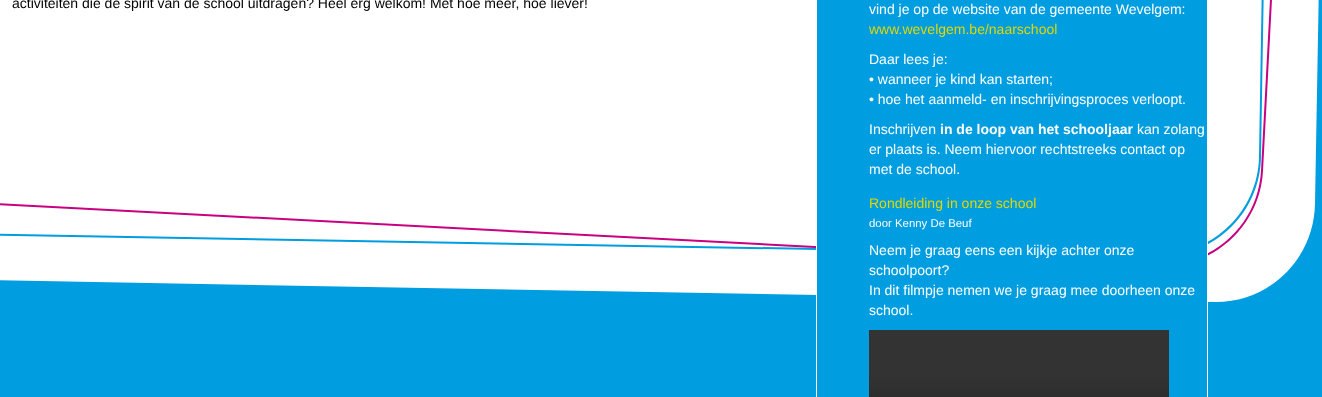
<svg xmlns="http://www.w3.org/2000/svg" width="1322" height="397">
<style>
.a{font:14px Liberation Sans;fill:#000}
.b{font:14px Liberation Sans;fill:#fff}
.c{font:14px Liberation Sans;fill:#e0d800}
.d{font:bold 14px Liberation Sans;fill:#fff}
.e{font:11.4px Liberation Sans;fill:#fff}
</style>
<rect width="100%" height="100%" fill="#009de0"/>
<path fill="#fff" d="M-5-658l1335 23l-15 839c-1 55-46 99-101 98l-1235-22z"/>
<path fill="#c80081" fill-rule="evenodd" d="M-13-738l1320 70l-44 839c-3 55-50 98-105 95l-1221-64zm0 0l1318 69l-44 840c-3 54-49 96-103 93l-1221-64z"/>
<path fill="#009de0" fill-rule="evenodd" d="M-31-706l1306 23l-14 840c-1 56-47 100-102 99l-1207-21zm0 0l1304 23l-14 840c-1 54-46 98-100 97l-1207-21z"/>
<path fill="#009de0" d="M817 0h390v302H817z"/>
<path fill="none" stroke="#fff" d="M816.5 -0.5h391v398H816.5z"/>
<image href="1.png" x="869" y="330" width="300" height="67"/>
<text class="a" x="12" y="8">activiteiten die de spirit van de school uitdragen? Heel erg welkom! Met hoe meer, hoe liever!</text>
<text class="b" x="869" y="14">vind je op de website van de gemeente Wevelgem:</text>
<text class="c" x="869" y="34">www.wevelgem.be/naarschool</text>
<text class="b" x="869" y="64">Daar lees je:</text>
<text class="b" x="869" y="84">• wanneer je kind kan starten;</text>
<text class="b" x="869" y="104">• hoe het aanmeld- en inschrijvingsproces verloopt.</text>
<text class="b" x="869" y="134">Inschrijven</text>
<text class="d" x="940" y="134">in de loop van het schooljaar</text>
<text class="b" x="1137" y="134">kan zolang</text>
<text class="b" x="869" y="154">er plaats is. Neem hiervoor rechtstreeks contact op</text>
<text class="b" x="869" y="174">met de school.</text>
<text class="c" x="869" y="208">Rondleiding in onze school</text>
<text class="e" x="869" y="227">door Kenny De Beuf</text>
<text class="b" x="869" y="255">Neem je graag eens een kijkje achter onze</text>
<text class="b" x="869" y="275">schoolpoort?</text>
<text class="b" x="869" y="295">In dit filmpje nemen we je graag mee doorheen onze</text>
<text class="b" x="869" y="315">school.</text>
</svg>
